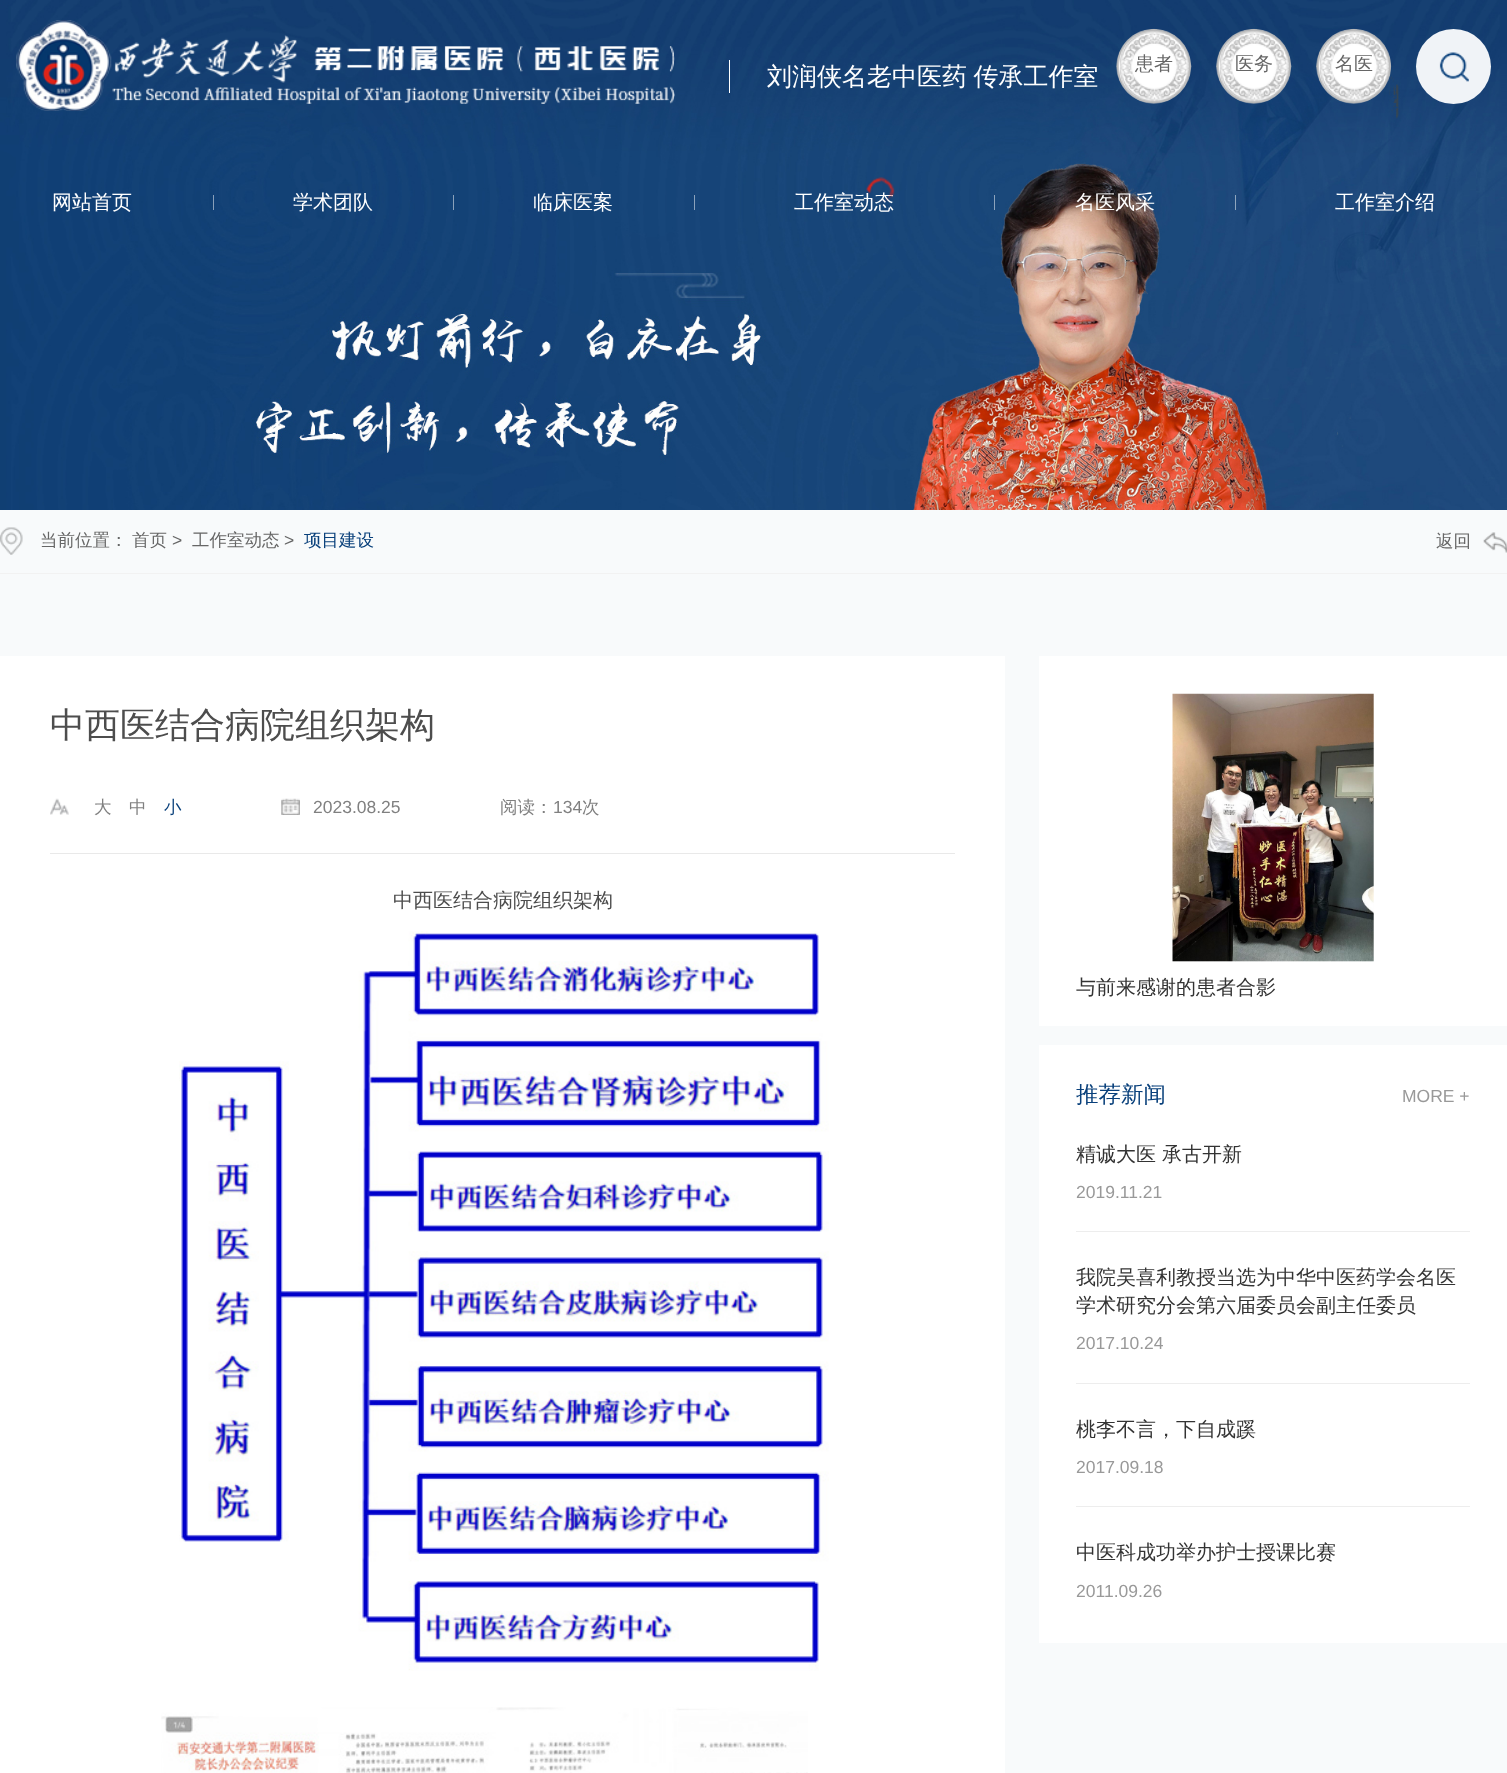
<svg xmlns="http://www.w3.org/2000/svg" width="1507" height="1773">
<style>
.a{font:500 25px WenQuanYi Zen Hei;fill:#fff}
.b{font:500 19px WenQuanYi Zen Hei;fill:#666}
.c{font:500 20px WenQuanYi Zen Hei;fill:#fff}
.d{font:500 17.5px WenQuanYi Zen Hei;fill:#666}
.e{font:17.5px Liberation Sans;fill:#666}
.f{font:500 17.5px WenQuanYi Zen Hei;fill:#09407b}
.g{font:500 35px WenQuanYi Zen Hei;fill:#4d4d4d}
.h{font:500 17.5px WenQuanYi Zen Hei;fill:#808080}
.i{font:17.5px Liberation Sans;fill:#808080}
.j{font:500 20px WenQuanYi Zen Hei;fill:#4d4d4d}
.k{font:500 20px WenQuanYi Zen Hei;fill:#333}
.l{font:500 22.5px WenQuanYi Zen Hei;fill:#09407b}
.m{font:17.5px Liberation Sans;fill:#999}
</style>
<rect width="100%" height="100%" fill="#f8fafb"/>
<image href="7.png" x="0" y="0" width="1507" height="510"/>
<image href="1.png" x="16" y="20" width="659" height="91"/>
<path fill="#fff" d="M729 60h1v33H729z"/>
<image href="2.png" x="1116" y="28" width="76" height="76"/>
<image href="3.png" x="1216" y="28" width="76" height="76"/>
<image href="4.png" x="1316" y="28" width="76" height="76"/>
<circle fill="#f0f3f7" cx="1453.5" cy="66.5" r="37.5"/>
<image href="5.png" x="1439" y="52" width="30" height="30"/>
<path fill="#889fba" d="M213 195h1v15H213z"/>
<path fill="#8aa1bb" d="M453 195h1v15H453z"/>
<path fill="#8ba2bc" d="M694 195h1v15H694z"/>
<path fill="#ffffff80" d="M994 195h1v15H994z"/>
<path fill="#8fa5be" d="M1235 195h1v15H1235z"/>
<path fill="#f2f2f2" d="M0 573h1507v1H0z"/>
<image href="8.png" x="0" y="527" width="23" height="28"/>
<image href="9.png" x="1483" y="532" width="24" height="21"/>
<path fill="#fff" d="M0 656h1005v1117H0z"/>
<path fill="#e9e9e9" d="M50 853h905v1H50z"/>
<image href="10.png" x="50" y="798" width="19" height="17"/>
<image href="11.png" x="281" y="798" width="19" height="17"/>
<image href="12.png" x="179" y="931" width="650" height="740"/>
<image href="13.png" x="161" y="1707" width="647" height="66"/>
<path fill="#fff" d="M1039 656h468v370H1039z"/>
<image href="14.png" x="1172" y="693" width="202" height="269"/>
<path fill="#fff" d="M1039 1045h468v598H1039z"/>
<path fill="#ededed" d="M1076 1231h394v1H1076z"/>
<path fill="#ededed" d="M1076 1383h394v1H1076z"/>
<path fill="#ededed" d="M1076 1506h394v1H1076z"/>
<text class="a" x="767" y="85" word-spacing="-1">刘润侠名老中医药 传承工作室</text>
<text class="b" x="1135" y="70">患者</text>
<text class="b" x="1235" y="70">医务</text>
<text class="b" x="1335" y="70">名医</text>
<text class="c" x="52" y="209">网站首页</text>
<text class="c" x="293" y="209">学术团队</text>
<text class="c" x="533" y="209">临床医案</text>
<text class="c" x="794" y="209">工作室动态</text>
<image href="6.png" x="866" y="177" width="29" height="26"/>
<text class="c" x="1075" y="209">名医风采</text>
<text class="c" x="1335" y="209">工作室介绍</text>
<text class="d" x="40" y="546">当前位置：</text>
<text class="d" x="132" y="546">首页</text>
<text class="e" x="172" y="546">&gt;</text>
<text class="d" x="192" y="546">工作室动态</text>
<text class="e" x="284" y="546">&gt;</text>
<text class="f" x="304" y="546">项目建设</text>
<text class="d" x="1436" y="547">返回</text>
<text class="g" x="50" y="737">中西医结合病院组织架构</text>
<text class="h" x="94" y="813">大</text>
<text class="h" x="129" y="813">中</text>
<text class="f" x="164" y="813">小</text>
<text class="i" x="313" y="813">2023.08.25</text>
<text class="h" x="500" y="813">阅读：</text>
<text class="i" x="553" y="813">134</text>
<text class="h" x="582" y="813">次</text>
<text class="j" x="393" y="907">中西医结合病院组织架构</text>
<text class="k" x="1076" y="994">与前来感谢的患者合影</text>
<text class="l" x="1076" y="1102">推荐新闻</text>
<text class="m" x="1402" y="1102">MORE +</text>
<text class="k" x="1076" y="1161">精诚大医 承古开新</text>
<text class="m" x="1076" y="1198">2019.11.21</text>
<text class="k" x="1076" y="1284">我院吴喜利教授当选为中华中医药学会名医</text>
<text class="k" x="1076" y="1312">学术研究分会第六届委员会副主任委员</text>
<text class="m" x="1076" y="1349">2017.10.24</text>
<text class="k" x="1076" y="1436">桃李不言，下自成蹊</text>
<text class="m" x="1076" y="1473">2017.09.18</text>
<text class="k" x="1076" y="1559">中医科成功举办护士授课比赛</text>
<text class="m" x="1076" y="1597">2011.09.26</text>
</svg>
